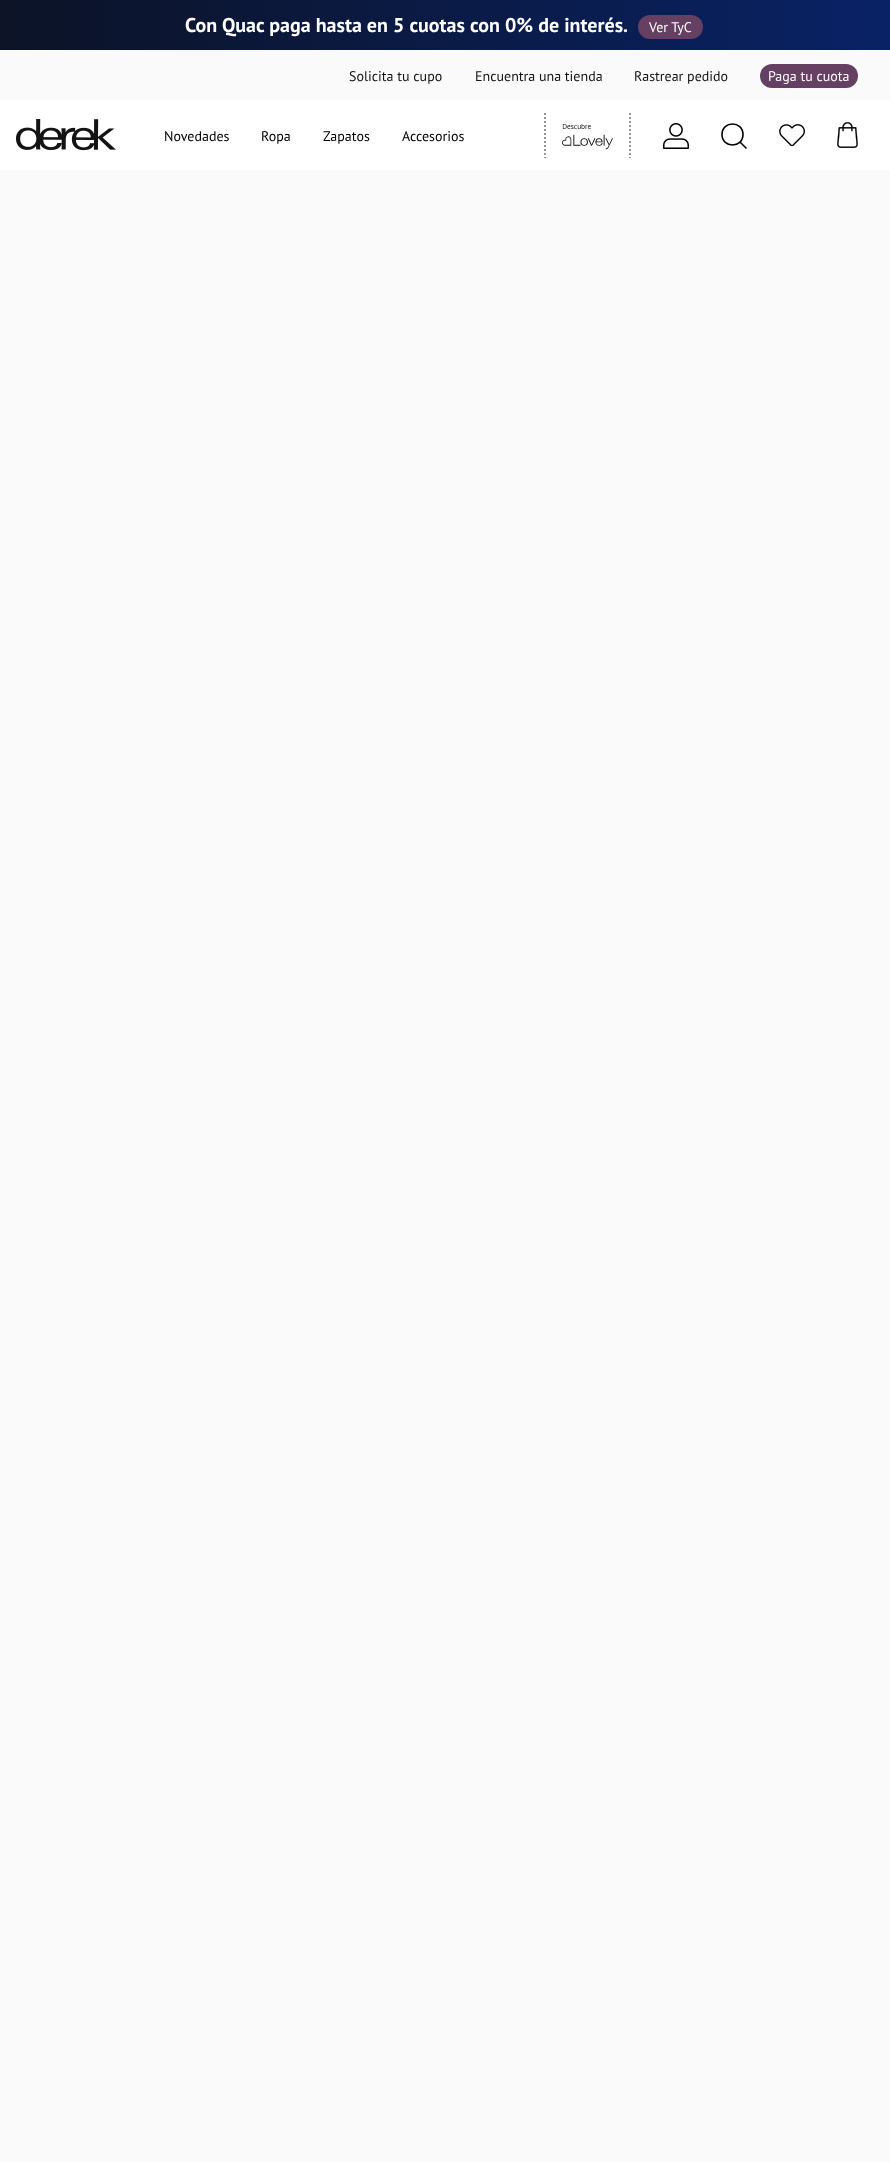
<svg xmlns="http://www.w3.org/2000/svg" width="890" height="2162">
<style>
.a{font:bold 20px PT Sans;fill:#fff}
.b{font:14px PT Sans;fill:#fff}
.c{font:14px PT Sans;fill:#131314}
.d{font:14px PT Sans;fill:#000}
</style>
<defs>
<linearGradient id="g1" gradientUnits="userSpaceOnUse" x1="0" y1="25" x2="890" y2="25"><stop offset="0" stop-color="#0c1326"/><stop offset="1" stop-color="#092265"/></linearGradient>
</defs>
<rect width="100%" height="100%" fill="#fafafa"/>
<path fill="#fff" d="M0 100h890v70H0z"/>
<path fill="url(#g1)" d="M0 0h890v50H0z"/>
<rect fill="#654062" x="638" y="15" width="65" height="24" rx="12"/>
<rect fill="#654062" x="760" y="64" width="98" height="24" rx="12"/>
<image href="1.png" x="16" y="119" width="100" height="32"/>
<path fill="none" stroke="#949494" stroke-width="2" stroke-dasharray="2 2" d="M630 113v45"/>
<path fill="none" stroke="#949494" stroke-width="2" stroke-dasharray="2 2" d="M545 113v45"/>
<image href="2.png" x="562" y="124" width="51" height="26"/>
<image href="3.png" x="663" y="123" width="26" height="26"/>
<path fill="none" stroke="#000" stroke-width="1.6" stroke-linecap="round" stroke-linejoin="round" d="M743 134.5c0 14-21 14-21 0c0-14 21-14 21 0zm3 13.5l-5.5-5.5"/>
<image href="4.png" x="779" y="124" width="26" height="22"/>
<image href="5.png" x="837" y="122" width="21" height="26"/>
<text class="a" x="185" y="32">Con Quac paga hasta en 5 cuotas con 0% de interés.</text>
<text class="b" x="649" y="32">Ver TyC</text>
<text class="c" x="349" y="81">Solicita tu cupo</text>
<text class="c" x="475" y="81">Encuentra una tienda</text>
<text class="c" x="634" y="81">Rastrear pedido</text>
<text class="b" x="768" y="81">Paga tu cuota</text>
<text class="d" x="164" y="141">Novedades</text>
<text class="d" x="261" y="141">Ropa</text>
<text class="d" x="323" y="141">Zapatos</text>
<text class="d" x="402" y="141">Accesorios</text>
</svg>
